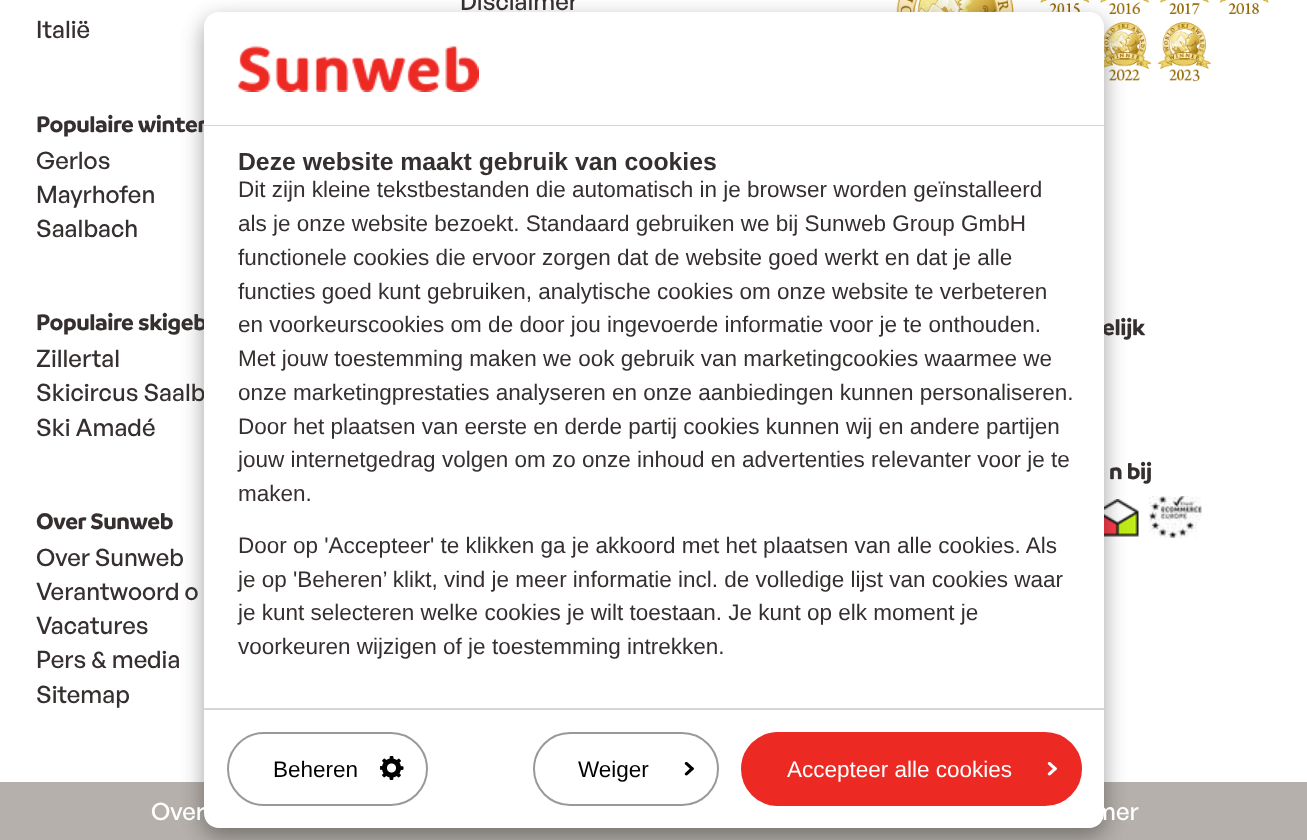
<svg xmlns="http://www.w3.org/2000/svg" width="1307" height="840">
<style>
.a{font:500 24px General Sans;fill:#362f2f}
.b{font:bold 24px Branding;letter-spacing:-0.4px;fill:#362f2f}
.c{font:500 24px General Sans;fill:#fff}
.d{font:bold 24.75px Liberation Sans;fill:#362f2f}
.e{font:22.5px Liberation Sans;fill:#362f2f}
.f{font:22.5px Liberation Sans;fill:#000}
.g{font:22.5px Liberation Sans;fill:#fff}
</style>
<rect width="100%" height="100%" fill="#fff"/>
<image href="1.png" x="896" y="0" width="373" height="82"/>
<image href="2.png" x="1104" y="499" width="35" height="38"/>
<image href="3.png" x="1149" y="496" width="53" height="42"/>
<path fill="#b5b0ab" d="M0 782h1307v58H0z"/>
<rect fill="#00000030" filter="blur(11px)" x="204" y="20" width="900" height="816" rx="15"/>
<rect fill="#00000033" filter="blur(11px)" x="204" y="20" width="900" height="816" rx="15"/>
<path fill="#fff" d="M204 708h900v105c0 8.5-6.5 15-15 15h-870c-8.5 0-15-6.5-15-15z"/>
<path fill="#d6d6d6" d="M204 708h900v2H204z"/>
<rect fill="none" stroke="#999" stroke-width="2" x="228" y="733" width="199" height="72" rx="36"/>
<image href="5.png" x="380" y="756" width="24" height="24"/>
<rect fill="none" stroke="#999" stroke-width="2" x="534" y="733" width="184" height="72" rx="36"/>
<image href="6.png" x="684" y="762" width="10" height="14"/>
<rect fill="#ed2924" stroke="#ed2924" stroke-width="2" x="742" y="733" width="339" height="72" rx="36"/>
<image href="7.png" x="1047" y="762" width="10" height="14"/>
<text class="a" x="36" y="38">Italië</text>
<text class="a" x="460" y="10">Disclaimer</text>
<text class="b" x="36" y="132">Populaire winter</text>
<text class="a" x="36" y="169">Gerlos</text>
<text class="a" x="36" y="203">Mayrhofen</text>
<text class="a" x="36" y="237">Saalbach</text>
<text class="b" x="36" y="330">Populaire skigeb</text>
<text class="a" x="36" y="367">Zillertal</text>
<text class="a" x="36" y="401">Skicircus Saalb</text>
<text class="a" x="36" y="436">Ski Amadé</text>
<text class="b" x="1102" y="335">elijk</text>
<text class="b" x="1109" y="479">n bij</text>
<text class="b" x="36" y="529">Over Sunweb</text>
<text class="a" x="36" y="566">Over Sunweb</text>
<text class="a" x="36" y="600">Verantwoord o</text>
<text class="a" x="36" y="634">Vacatures</text>
<text class="a" x="36" y="668">Pers &amp; media</text>
<text class="a" x="36" y="703">Sitemap</text>
<text class="c" x="151" y="820">Over</text>
<text class="c" x="1094" y="820">mer</text>
<path fill="#fff" d="M219 12h870c8.5 0 15 6.5 15 15v99h-900v-99c0-8.5 6.5-15 15-15z"/>
<path fill="#d6d6d6" d="M204 125h900v1H204z"/>
<image href="4.png" x="238" y="46" width="241" height="46"/>
<path fill="#fff" d="M204 126h900v582H204z"/>
<text class="d" x="238" y="170">Deze website maakt gebruik van cookies</text>
<text class="e" x="238" y="197">Dit zijn kleine tekstbestanden die automatisch in je browser worden geïnstalleerd</text>
<text class="e" x="238" y="231">als je onze website bezoekt. Standaard gebruiken we bij Sunweb Group GmbH</text>
<text class="e" x="238" y="265">functionele cookies die ervoor zorgen dat de website goed werkt en dat je alle</text>
<text class="e" x="238" y="299">functies goed kunt gebruiken, analytische cookies om onze website te verbeteren</text>
<text class="e" x="238" y="332">en voorkeurscookies om de door jou ingevoerde informatie voor je te onthouden.</text>
<text class="e" x="238" y="366">Met jouw toestemming maken we ook gebruik van marketingcookies waarmee we</text>
<text class="e" x="238" y="400">onze marketingprestaties analyseren en onze aanbiedingen kunnen personaliseren.</text>
<text class="e" x="238" y="434">Door het plaatsen van eerste en derde partij cookies kunnen wij en andere partijen</text>
<text class="e" x="238" y="467">jouw internetgedrag volgen om zo onze inhoud en advertenties relevanter voor je te</text>
<text class="e" x="238" y="501">maken.</text>
<text class="e" x="238" y="553">Door op 'Accepteer' te klikken ga je akkoord met het plaatsen van alle cookies. Als</text>
<text class="e" x="238" y="587">je op 'Beheren’ klikt, vind je meer informatie incl. de volledige lijst van cookies waar</text>
<text class="e" x="238" y="620">je kunt selecteren welke cookies je wilt toestaan. Je kunt op elk moment je</text>
<text class="e" x="238" y="654">voorkeuren wijzigen of je toestemming intrekken.</text>
<text class="f" x="273" y="777">Beheren</text>
<text class="f" x="578" y="777">Weiger</text>
<text class="g" x="787" y="777">Accepteer alle cookies</text>
</svg>
